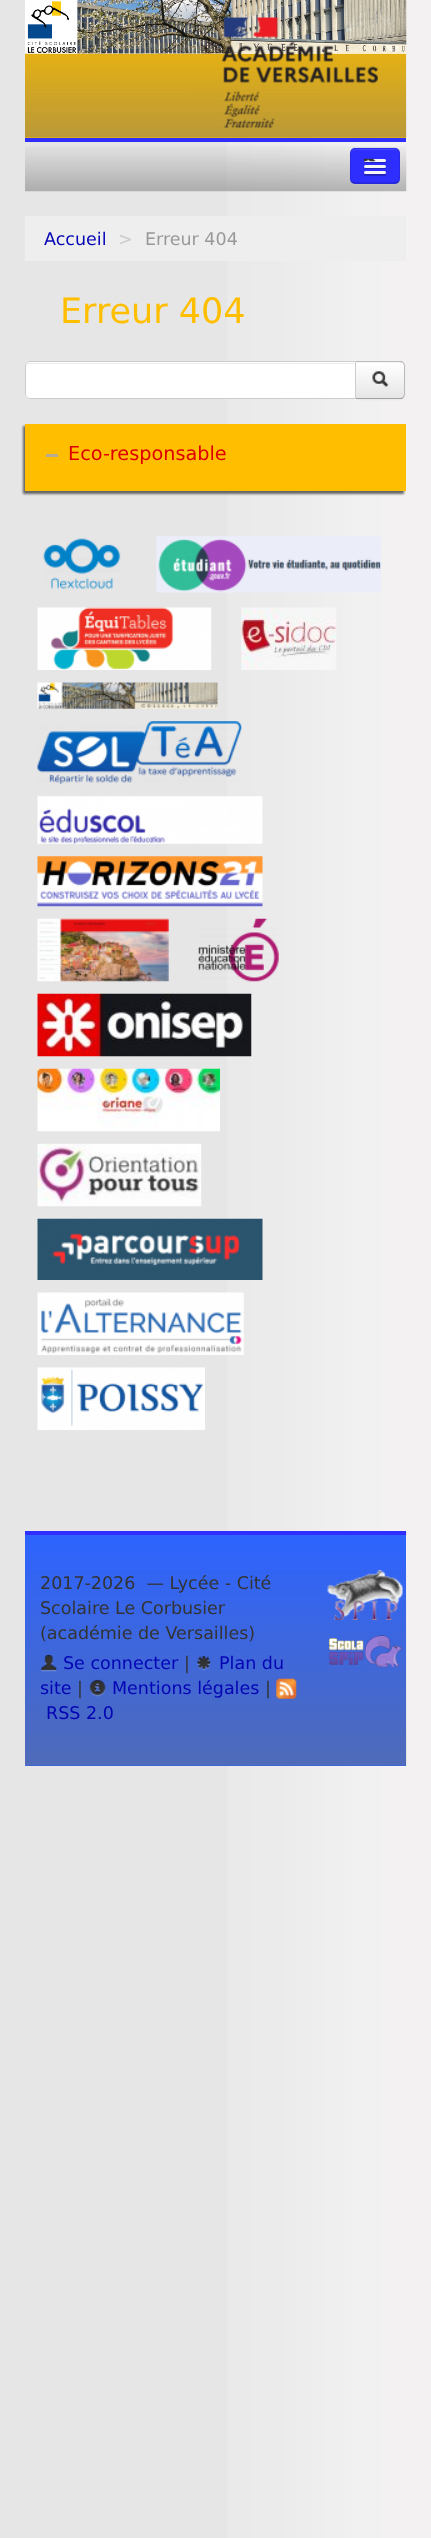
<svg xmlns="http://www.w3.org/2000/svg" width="431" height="2538">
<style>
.a{font:17.5px DejaVu Sans;fill:#0404b4}
.b{font:17.5px DejaVu Sans;fill:#ccc}
.c{font:17.5px DejaVu Sans;fill:#999}
.d{font:35px DejaVu Sans;fill:#ffbf00}
.e{font:19.25px DejaVu Sans;fill:#df0101}
.f{font:17.5px DejaVu Sans;fill:#333}
</style>
<defs>
<clipPath id="clip1"><path d="M355 361h45c3 0 5 2 5 5v28c0 3-2 5-5 5h-45z"/></clipPath>
<linearGradient id="g1" gradientUnits="userSpaceOnUse" x1="380" y1="363" x2="380" y2="398"><stop offset="0" stop-color="#fff"/><stop offset="1" stop-color="#e6e6e6"/></linearGradient>
</defs>
<rect width="100%" height="100%" fill="#e6e6e6"/>
<image href="1.png" x="227" y="0" width="204" height="2538"/>
<path fill="#ffbf00" d="M25 53h381v85H25z"/>
<image href="2.png" x="25" y="26" width="382" height="112"/>
<path fill="#2e2efe" d="M25 138h381v4H25z"/>
<image href="3.png" x="25" y="0" width="382" height="54"/>
<image href="4.png" x="222" y="17" width="156" height="111"/>
<image href="5.png" x="25" y="146" width="382" height="46"/>
<path fill="#ffffff12" d="M350 179c0 7 6 6 12 6h26c6 0 12 1 12-6c0 3-2 5-5 5h-40c-3 0-5-2-5-5z"/>
<rect fill="#2e2efe" x="350" y="148" width="50" height="36" rx="5"/>
<path fill="#4343fe" d="M355 150h40c2 0 4 2 4 4c0-6-6-5-11-5h-26c-5 0-11-1-11 5c0-2 2-4 4-4z"/>
<path fill="none" stroke="#00000040" stroke-width="1.2" d="M398 182c-.5 .5-2 1-3 1h-40c-1 0-2.5-.5-3-1"/>
<path fill="none" stroke="#0000001a" stroke-width="1.2" d="M352 182c-2.5-3-1.5-13-1.5-16.5v-8.5c0-3.5-.5-8 3.5-9h42c4 1 3.5 5.5 3.5 9v8.5c0 3.5 1 13.5-1.5 16.5"/>
<path fill="#2323bf" d="M364 161c-1 2.5 4 2 4.5 2h13c.5 0 5.5 .5 4.5-2c-1 .5-21 .5-22 0z"/>
<rect fill="#f5f5f5" x="364" y="159" width="22" height="3" rx="1.5"/>
<image href="6.png" x="363" y="158" width="13" height="4"/>
<path fill="#2323bf" d="M364 167c-.5 2.5 4 2 4.5 2h13c.5 0 5 .5 4.5-2c-1 1-21 1-22 0z"/>
<rect fill="#f5f5f5" x="364" y="165" width="22" height="3" rx="1.5"/>
<path fill="#2323bf" d="M364.5 173.5l-.5 1.5c.5 1.5 3.5 1 4.5 1h13c1 0 4 .5 4.5-1l-.5-1.5z"/>
<rect fill="#f5f5f5" x="364" y="171" width="22" height="3" rx="1.5"/>
<path fill="#eee" d="M25 216h381v45H25z"/>
<rect fill="#0000000d" filter="blur(1px)" x="355" y="363" width="50" height="37" rx="5"/>
<path fill="#f5f5f5" d="M355 361h45c3 0 5 2 5 5v28c0 3-2 5-5 5h-45z"/>
<path fill="#bbb" d="M356 362l-1-1h47l2 2h-1l-3-1z"/>
<g clip-path="url(#clip1)">
<path fill="url(#g1)" d="M356 363h49v35H356z"/>
</g>
<path fill="#bbb" d="M405 394v-28c0-1.5-.5-2.5-1.5-3.5l-.5 1c.5 .5 1 1.5 1 2.5v28c0 1-.5 2-1 2.5l.5 1c1-1 1.5-2 1.5-3.5z"/>
<path fill="#a2a2a2" d="M402 399h-47l1-1h45l2-1h1z"/>
<path fill="#fff" d="M30 361h326v38h-326c-3 0-5-2-5-5v-28c0-3 2-5 5-5z"/>
<path fill="#ececec" d="M30 364h325v-1h-325c-2 0-4 2-4 4v1c0-3 2-4 4-4z"/>
<path fill="none" stroke="#ccc" d="M30 361.5h325.5v37h-325.5c-2.5 0-4.5-2-4.5-4.5v-28c0-2.5 2-4.5 4.5-4.5z"/>
<image href="7.png" x="372" y="371" width="17" height="17"/>
<path fill="#666" filter="blur(1px)" d="M23 426h381v68H23z"/>
<path fill="#ffbf00" d="M25 424h381v67H25z"/>
<path fill="#b4ac93" d="M46 454h12v3H46z"/>
<image href="8.png" x="43" y="538" width="78" height="51"/>
<image href="9.png" x="156" y="536" width="225" height="57"/>
<image href="10.png" x="37" y="607" width="175" height="63"/>
<image href="11.png" x="241" y="607" width="96" height="63"/>
<image href="12.png" x="37" y="682" width="181" height="27"/>
<image href="13.png" x="37" y="721" width="205" height="63"/>
<image href="14.png" x="37" y="796" width="226" height="48"/>
<image href="15.png" x="37" y="856" width="226" height="51"/>
<image href="16.png" x="37" y="918" width="132" height="64"/>
<image href="17.png" x="198" y="918" width="81" height="64"/>
<image href="18.png" x="37" y="993" width="215" height="64"/>
<image href="19.png" x="37" y="1068" width="183" height="64"/>
<image href="20.png" x="37" y="1143" width="165" height="64"/>
<image href="21.png" x="37" y="1218" width="226" height="62"/>
<image href="22.png" x="37" y="1292" width="207" height="63"/>
<image href="23.png" x="37" y="1367" width="168" height="63"/>
<path fill="#2e64fe" d="M25 1535h381v231H25z"/>
<image href="24.png" x="25" y="1531" width="382" height="235"/>
<path fill="#2e2efe" d="M25 1531h381v4H25z"/>
<image href="25.png" x="197" y="1656" width="14" height="15"/>
<image href="26.png" x="41" y="1654" width="16" height="18"/>
<image href="27.png" x="89" y="1679" width="17" height="18"/>
<image href="28.png" x="276" y="1678" width="21" height="21"/>
<image href="29.png" x="327" y="1570" width="76" height="50"/>
<image href="30.png" x="328" y="1635" width="75" height="33"/>
<text class="a" x="44" y="245">Accueil</text>
<text class="b" x="118" y="245">&gt;</text>
<text class="c" x="145" y="245">Erreur 404</text>
<text class="d" x="60" y="323">Erreur 404</text>
<text class="e" x="68" y="460">Eco-responsable</text>
<text class="f" xml:space="preserve" x="40" y="1589">2017-2026  — Lycée - Cité</text>
<text class="f" x="40" y="1614">Scolaire Le Corbusier</text>
<text class="f" x="40" y="1639">(académie de Versailles)</text>
<text class="a" x="219" y="1669">Plan du</text>
<text class="a" x="40" y="1694">site</text>
<text class="a" x="63" y="1669">Se connecter</text>
<text class="f" x="184" y="1669">|</text>
<text class="f" x="77" y="1694">|</text>
<text class="a" x="112" y="1694">Mentions légales</text>
<text class="f" x="265" y="1694">|</text>
<text class="a" x="46" y="1719">RSS 2.0</text>
</svg>
